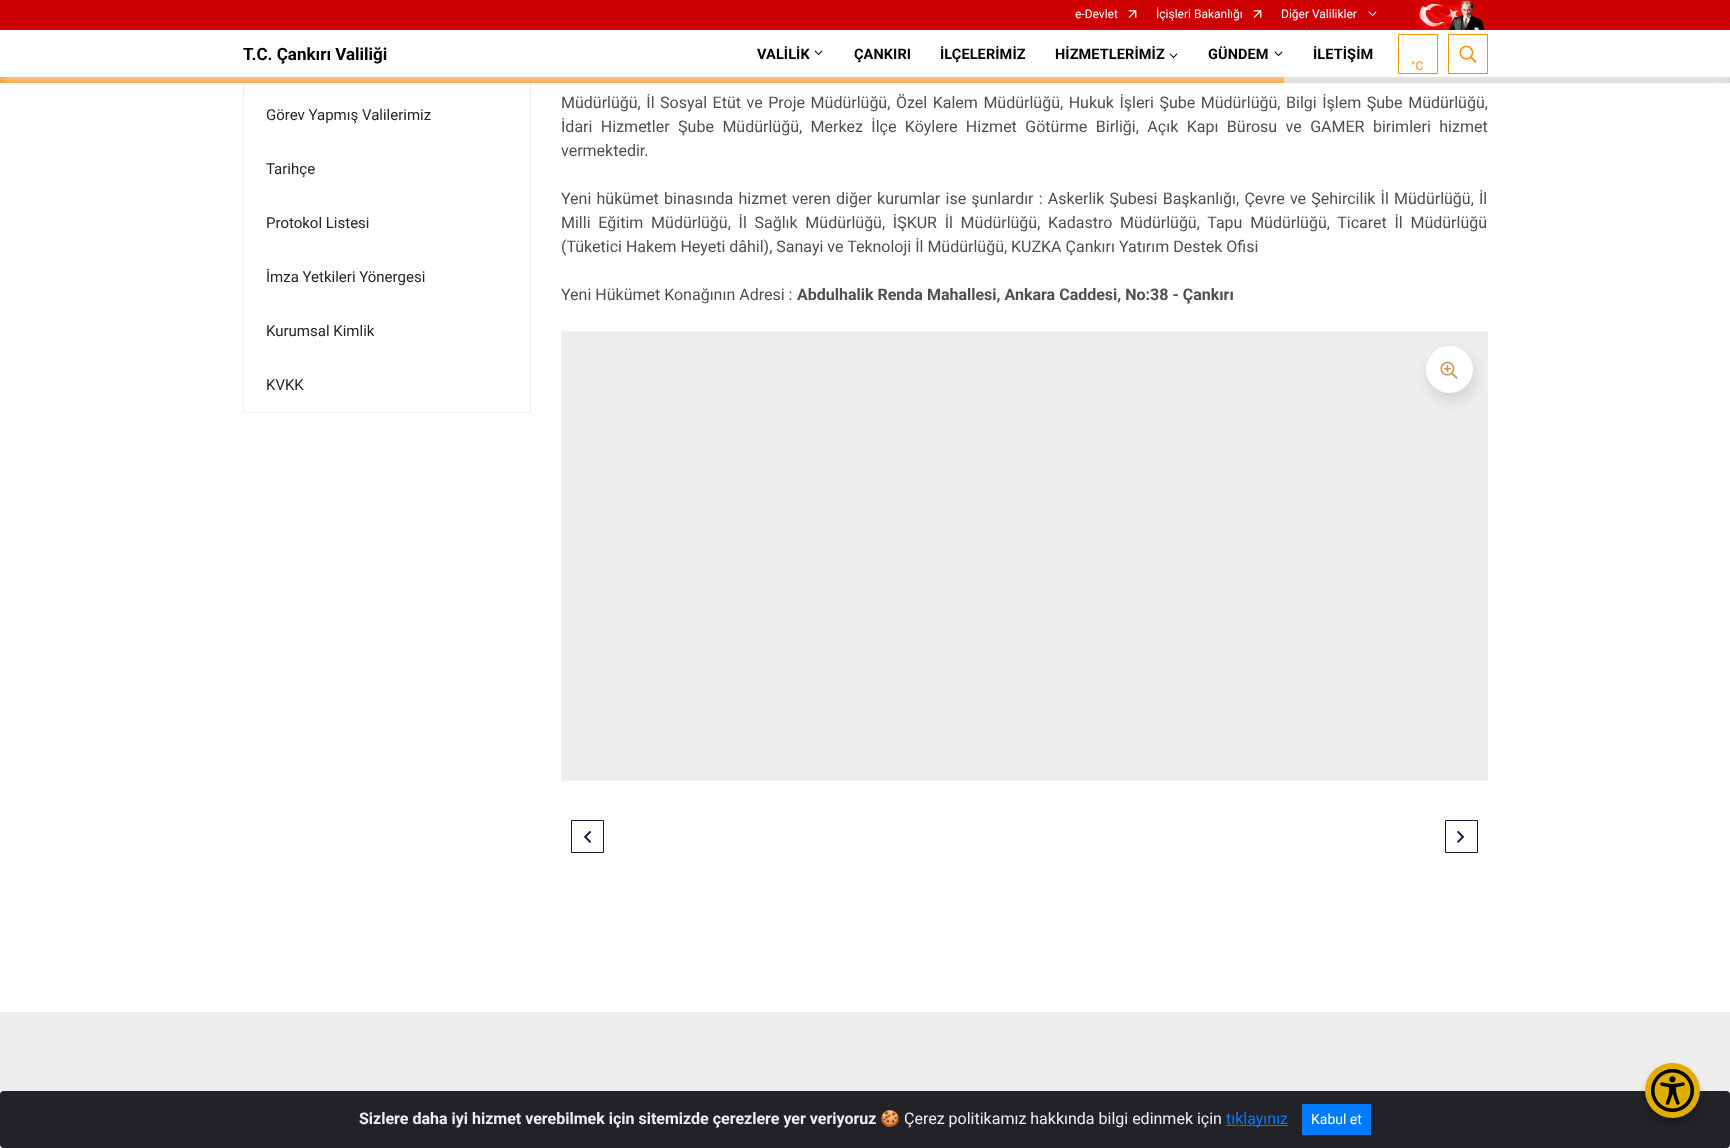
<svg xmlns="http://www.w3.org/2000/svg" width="1730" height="1148">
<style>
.a{font:12px Roboto;fill:#fff}
.b{font:bold 17px Roboto;fill:#000}
.c{font:bold 14.5px Roboto;letter-spacing:0.1px;fill:#000}
.d{font:12px Roboto;fill:#f59300}
.e{font:15px Roboto;fill:#252525}
.f{font:16px Roboto;fill:#4f4f4f}
.g{font:bold 16px Roboto;fill:#4f4f4f}
.h{font:bold 16px Roboto;fill:#ecf0f1}
.i{font:16px Noto Color Emoji;fill:#ecf0f1}
.j{font:16px Roboto;fill:#ecf0f1}
.k{font:16px Roboto;fill:#007bff}
.l{font:14px Roboto;fill:#fff}
</style>
<rect width="100%" height="100%" fill="#fff"/>
<path fill="none" stroke="#eee" d="M243.5 -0.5h287v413H243.5z"/>
<path fill="#c00" d="M0 0h1730v30H0z"/>
<image href="1.png" x="1128" y="10" width="9" height="8"/>
<image href="1.png" x="1253" y="10" width="9" height="8"/>
<image href="2.png" x="1368" y="11" width="9" height="6"/>
<image href="3.png" x="1413" y="0" width="72" height="30"/>
<path fill="#d7d7d7" d="M1284 77h446v6H1284z"/>
<path fill="#f59300" d="M0 77h1284v6H0z"/>
<path fill="#eeeeee9e" filter="blur(5px)" d="M0 36h1730v47H0z"/>
<path fill="#fff" d="M0 30h1730v47H0z"/>
<image href="4.png" x="814" y="50" width="9" height="6"/>
<image href="4.png" x="1169" y="53" width="9" height="6"/>
<image href="4.png" x="1274" y="51" width="9" height="6"/>
<path fill="none" stroke="#f59300" d="M1398.5 34.5h39v39H1398.5z"/>
<path fill="none" stroke="#f59300" d="M1448.5 34.5h39v39H1448.5z"/>
<image href="5.png" x="1459" y="45" width="18" height="18"/>
<path fill="#eee" d="M561 331h927v450H561z"/>
<rect fill="#13183e21" filter="blur(6.5px)" x="1428" y="353" width="47" height="47" rx="23.5"/>
<circle fill="#fff" cx="1449.5" cy="369.5" r="23.5"/>
<image href="6.png" x="1440" y="361" width="18" height="18"/>
<path fill="none" stroke="#13183e" d="M571.5 820.5h32v32H571.5z"/>
<image href="7.png" x="584" y="830" width="8" height="13"/>
<path fill="none" stroke="#13183e" d="M1445.5 820.5h32v32H1445.5z"/>
<image href="8.png" x="1457" y="830" width="8" height="13"/>
<path fill="#eee" d="M0 1012h1730v136H0z"/>
<rect fill="#212327" y="1091" width="1730" height="57" rx="4"/>
<path fill="#007bff" d="M1226 1125h62v1H1226z"/>
<path fill="#007bff" d="M1302 1104h69v31H1302z"/>
<rect fill="#00000033" filter="blur(4px)" x="1645" y="1069" width="55" height="55" rx="27.5"/>
<circle fill="#e1ad01" cx="1672.5" cy="1090.5" r="27.5"/>
<image href="9.png" x="1651" y="1069" width="43" height="43"/>
<text class="a" x="1075" y="18">e-Devlet</text>
<text class="a" x="1156" y="18">İçişleri Bakanlığı</text>
<text class="a" x="1281" y="18">Diğer Valilikler</text>
<text class="b" x="243" y="60">T.C. Çankırı Valiliği</text>
<text class="c" x="757" y="59">VALİLİK</text>
<text class="c" x="854" y="59">ÇANKIRI</text>
<text class="c" x="940" y="59">İLÇELERİMİZ</text>
<text class="c" x="1055" y="59">HİZMETLERİMİZ</text>
<text class="c" x="1208" y="59">GÜNDEM</text>
<text class="c" x="1313" y="59">İLETİŞİM</text>
<text class="d" x="1411" y="70">°C</text>
<text class="e" x="266" y="120">Görev Yapmış Valilerimiz</text>
<text class="e" x="266" y="174">Tarihçe</text>
<text class="e" x="266" y="228">Protokol Listesi</text>
<text class="e" x="266" y="282">İmza Yetkileri Yönergesi</text>
<text class="e" x="266" y="336">Kurumsal Kimlik</text>
<text class="e" x="266" y="390">KVKK</text>
<text class="f" x="561" y="108" word-spacing="1.6">Müdürlüğü, İl Sosyal Etüt ve Proje Müdürlüğü, Özel Kalem Müdürlüğü, Hukuk İşleri Şube Müdürlüğü, Bilgi İşlem Şube Müdürlüğü,</text>
<text class="f" x="561" y="132" word-spacing="4.5">İdari Hizmetler Şube Müdürlüğü, Merkez İlçe Köylere Hizmet Götürme Birliği, Açık Kapı Bürosu ve GAMER birimleri hizmet</text>
<text class="f" x="561" y="156">vermektedir.</text>
<text class="f" x="561" y="204" word-spacing="1.25">Yeni hükümet binasında hizmet veren diğer kurumlar ise şunlardır : Askerlik Şubesi Başkanlığı, Çevre ve Şehircilik İl Müdürlüğü, İl</text>
<text class="f" x="561" y="228" word-spacing="3.75">Milli Eğitim Müdürlüğü, İl Sağlık Müdürlüğü, İŞKUR İl Müdürlüğü, Kadastro Müdürlüğü, Tapu Müdürlüğü, Ticaret İl Müdürlüğü</text>
<text class="f" x="561" y="252">(Tüketici Hakem Heyeti dâhil), Sanayi ve Teknoloji İl Müdürlüğü, KUZKA Çankırı Yatırım Destek Ofisi</text>
<text class="f" x="561" y="300">Yeni Hükümet Konağının Adresi :</text>
<text class="g" x="797" y="300">Abdulhalik Renda Mahallesi, Ankara Caddesi, No:38 - Çankırı</text>
<text class="h" x="359" y="1124">Sizlere daha iyi hizmet verebilmek için sitemizde çerezlere yer veriyoruz</text>
<text class="i" x="880" y="1124">🍪</text>
<text class="j" x="904" y="1124">Çerez politikamız hakkında bilgi edinmek için</text>
<text class="k" x="1226" y="1124">tıklayınız</text>
<text class="l" x="1311" y="1124">Kabul et</text>
</svg>
